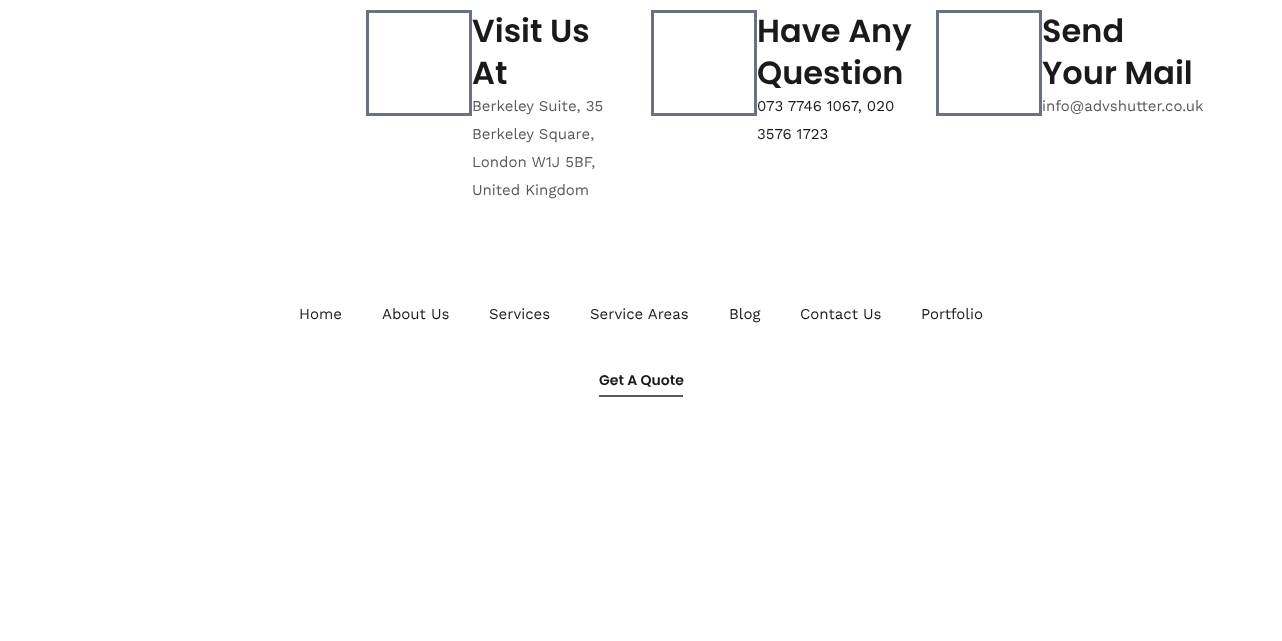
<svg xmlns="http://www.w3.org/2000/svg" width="1282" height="641">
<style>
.a{font:600 32px Poppins;fill:#1a1a1a}
.b{font:15px Work Sans;fill:#5a5a5a}
.c{font:15px Work Sans;fill:#1a1a1a}
.d{font:600 14px Poppins;fill:#1a1a1a}
</style>
<rect width="100%" height="100%" fill="#fff"/>
<path fill="none" stroke="#69727d" stroke-width="3" d="M367.5 11.5h103v103H367.5z"/>
<path fill="none" stroke="#69727d" stroke-width="3" d="M652.5 11.5h103v103H652.5z"/>
<path fill="none" stroke="#69727d" stroke-width="3" d="M937.5 11.5h103v103H937.5z"/>
<path fill="#5a5a5a" d="M599 395h84v2H599z"/>
<text class="a" x="472" y="42">Visit Us</text>
<text class="a" x="472" y="84">At</text>
<text class="b" x="472" y="111">Berkeley Suite, 35</text>
<text class="b" x="472" y="139">Berkeley Square,</text>
<text class="b" x="472" y="167">London W1J 5BF,</text>
<text class="b" x="472" y="195">United Kingdom</text>
<text class="a" x="757" y="42">Have Any</text>
<text class="a" x="757" y="84">Question</text>
<text class="c" x="757" y="111">073 7746 1067, 020</text>
<text class="c" x="757" y="139">3576 1723</text>
<text class="a" x="1042" y="42">Send</text>
<text class="a" x="1042" y="84">Your Mail</text>
<text class="b" x="1042" y="111">info@advshutter.co.uk</text>
<text class="c" x="299" y="319">Home</text>
<text class="c" x="382" y="319">About Us</text>
<text class="c" x="489" y="319">Services</text>
<text class="c" x="590" y="319">Service Areas</text>
<text class="c" x="729" y="319">Blog</text>
<text class="c" x="800" y="319">Contact Us</text>
<text class="c" x="921" y="319">Portfolio</text>
<text class="d" x="599" y="385">Get A Quote</text>
</svg>
